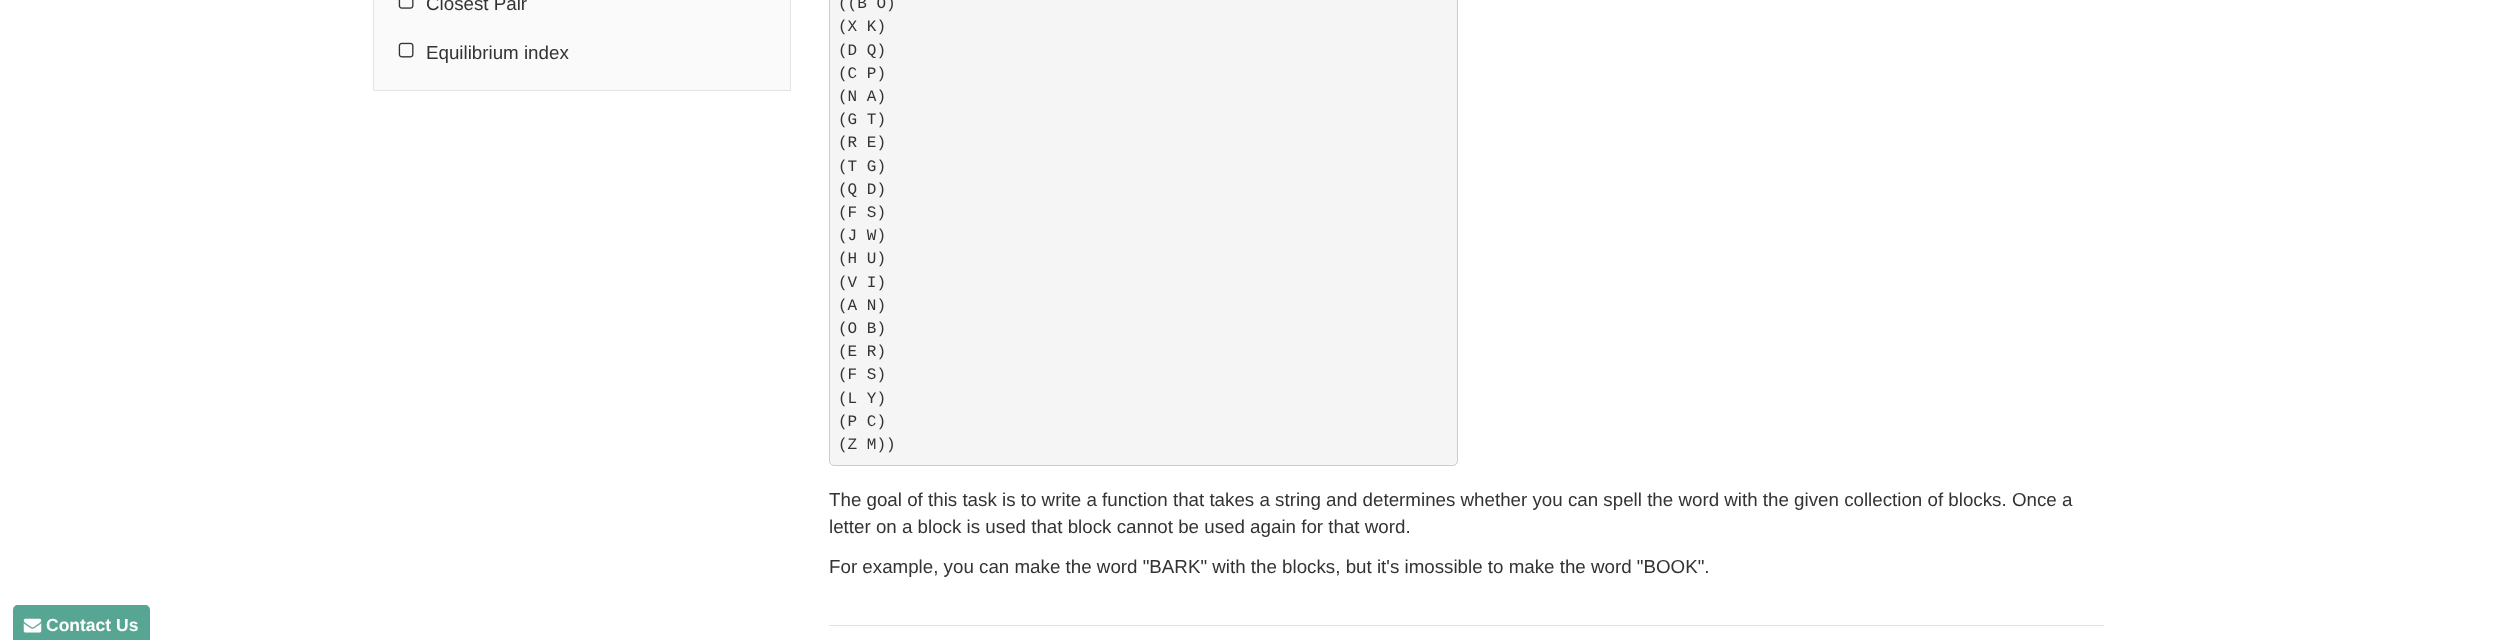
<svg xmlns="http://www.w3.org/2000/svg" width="2494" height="640">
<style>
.a{font:18.75px Liberation Sans;fill:#333}
.b{font:16px Liberation Mono;fill:#333}
.c{font:bold 17.5px Liberation Sans;fill:#fff}
</style>
<rect width="100%" height="100%" fill="#fff"/>
<path fill="#fafafa" stroke="#e2e2e2" d="M373.5 -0.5h417v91H373.5z"/>
<image href="1.png" x="398" y="0" width="16" height="9"/>
<image href="2.png" x="398" y="42" width="16" height="16"/>
<rect fill="#f5f5f5" stroke="#ccc" x="829.5" y="-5.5" width="628" height="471" rx="4.5"/>
<path fill="#e2e2e2" d="M829 625h1275v1H829z"/>
<path fill="#57a694" d="M18 605h127c3 0 5 2 5 5v30h-137v-30c0-3 2-5 5-5z"/>
<image href="3.png" x="23" y="618" width="19" height="15"/>
<text class="a" x="426" y="10">Closest Pair</text>
<text class="a" x="426" y="59">Equilibrium index</text>
<text class="b" x="838" y="8">((B O)</text>
<text class="b" x="838" y="31">(X K)</text>
<text class="b" x="838" y="55">(D Q)</text>
<text class="b" x="838" y="78">(C P)</text>
<text class="b" x="838" y="101">(N A)</text>
<text class="b" x="838" y="124">(G T)</text>
<text class="b" x="838" y="147">(R E)</text>
<text class="b" x="838" y="171">(T G)</text>
<text class="b" x="838" y="194">(Q D)</text>
<text class="b" x="838" y="217">(F S)</text>
<text class="b" x="838" y="240">(J W)</text>
<text class="b" x="838" y="263">(H U)</text>
<text class="b" x="838" y="287">(V I)</text>
<text class="b" x="838" y="310">(A N)</text>
<text class="b" x="838" y="333">(O B)</text>
<text class="b" x="838" y="356">(E R)</text>
<text class="b" x="838" y="379">(F S)</text>
<text class="b" x="838" y="403">(L Y)</text>
<text class="b" x="838" y="426">(P C)</text>
<text class="b" x="838" y="449">(Z M))</text>
<text class="a" x="829" y="506">The goal of this task is to write a function that takes a string and determines whether you can spell the word with the given collection of blocks. Once a</text>
<text class="a" x="829" y="533">letter on a block is used that block cannot be used again for that word.</text>
<text class="a" x="829" y="573">For example, you can make the word "BARK" with the blocks, but it's imossible to make the word "BOOK".</text>
<text class="c" x="46" y="631">Contact Us</text>
</svg>
